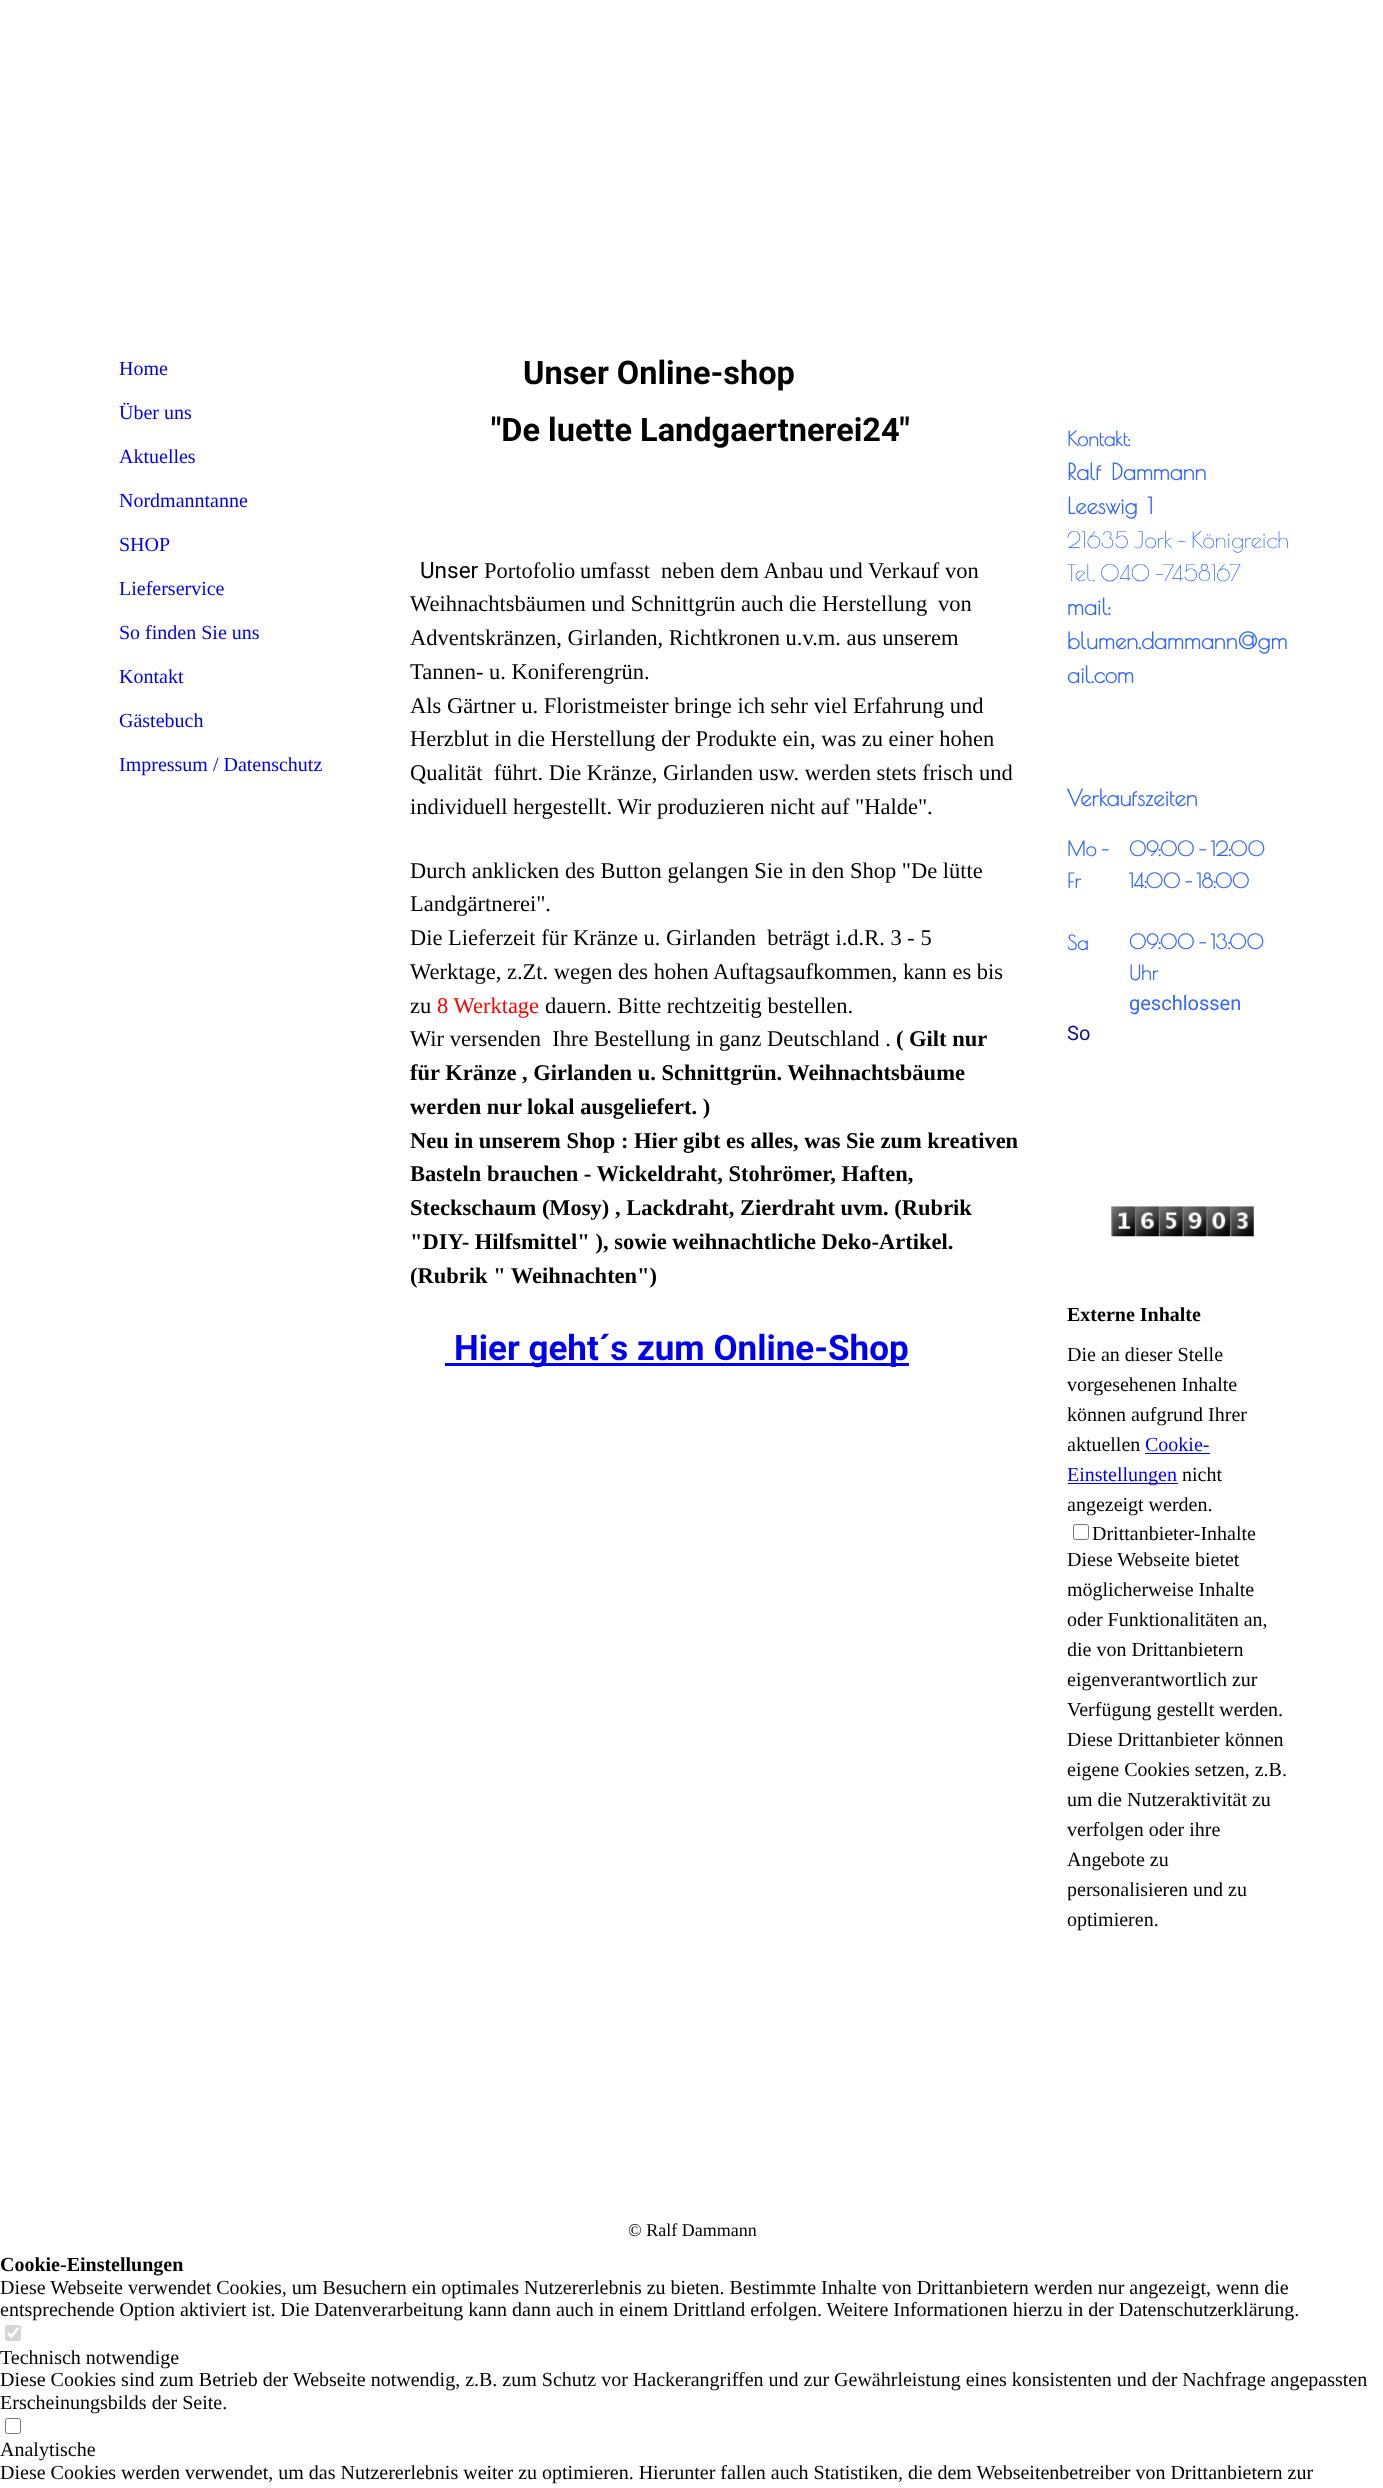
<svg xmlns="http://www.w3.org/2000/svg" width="1383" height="2488">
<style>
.a{font:20px Liberation Serif;fill:#00e}
.b{font:bold 32.5px Roboto;fill:#000}
.c{font:22.5px Roboto;fill:#000}
.d{font:22.5px Liberation Serif;fill:#000}
.e{font:22.5px Liberation Serif;fill:#f00}
.f{font:bold 22.5px Liberation Serif;fill:#000}
.g{font:bold 35px Roboto;fill:#00e}
.h{font:bold 20px Poiret One;fill:#36f}
.i{font:bold 22.5px Poiret One;fill:#36f}
.j{font:22.5px Poiret One;fill:#36f}
.k{font:20px Roboto;fill:#140d8d}
.l{font:20px Roboto;fill:#36f}
.m{font:bold 20px Liberation Serif;fill:#000}
.n{font:20px Liberation Serif;fill:#000}
.o{font:18px Liberation Serif;fill:#000}
</style>
<defs>
<clipPath id="clip1"><path d="M1068 1284h225v651H1068z"/></clipPath>
</defs>
<rect width="100%" height="100%" fill="#fff"/>
<path fill="#00e" d="M445 1363h464v3H445z"/>
<image href="1.png" x="1111" y="1206" width="143" height="31"/>
<path fill="#00e" d="M1145 1453h65v1H1145z"/>
<path fill="#00e" d="M1068 1483h110v1H1068z"/>
<rect fill="none" stroke="#767676" x="1073.5" y="1524.5" width="15" height="15" rx="2"/>
<rect fill="#d6d6d6" x="5" y="2325" width="16" height="16" rx="2.5"/>
<path fill="none" stroke="#fff" stroke-width="2.6" d="M8 2333l3.5 3.5l6.5-8.5"/>
<rect fill="none" stroke="#767676" x="5.5" y="2418.5" width="15" height="15" rx="2"/>
<text class="a" x="119" y="375">Home</text>
<text class="a" x="119" y="419">Über uns</text>
<text class="a" x="119" y="463">Aktuelles</text>
<text class="a" x="119" y="507">Nordmanntanne</text>
<text class="a" x="119" y="551">SHOP</text>
<text class="a" x="119" y="595">Lieferservice</text>
<text class="a" x="119" y="639">So finden Sie uns</text>
<text class="a" x="119" y="683">Kontakt</text>
<text class="a" x="119" y="727">Gästebuch</text>
<text class="a" x="119" y="771">Impressum / Datenschutz</text>
<text class="b" x="523" y="384">Unser Online-shop</text>
<text class="b" x="491" y="441">"De luette Landgaertnerei24"</text>
<text class="c" x="420" y="578">Unser</text>
<text class="d" x="484" y="578">Portofolio</text>
<text class="d" x="580" y="578">umfasst</text>
<text class="d" x="661" y="578">neben dem Anbau und Verkauf von</text>
<text class="d" x="410" y="611">Weihnachtsbäumen und Schnittgrün</text>
<text class="d" x="741" y="611">auch die Herstellung</text>
<text class="d" x="938" y="611">von</text>
<text class="d" x="410" y="645">Adventskränzen, Girlanden, Richtkronen u.v.m. aus unserem</text>
<text class="d" x="410" y="679">Tannen- u. Koniferengrün.</text>
<text class="d" x="410" y="713">Als Gärtner u. Floristmeister bringe ich sehr viel Erfahrung und</text>
<text class="d" x="410" y="746">Herzblut in die Herstellung der Produkte ein, was zu einer hohen</text>
<text class="d" xml:space="preserve" x="410" y="780">Qualität  führt. Die Kränze, Girlanden usw. werden stets frisch und</text>
<text class="d" x="410" y="814">individuell hergestellt. Wir produzieren nicht auf "Halde".</text>
<text class="d" x="410" y="878">Durch anklicken des Button gelangen Sie in den Shop "De lütte</text>
<text class="d" x="410" y="911">Landgärtnerei".</text>
<text class="d" xml:space="preserve" x="410" y="945">Die Lieferzeit für Kränze u. Girlanden  beträgt i.d.R. 3 - 5</text>
<text class="d" x="410" y="979">Werktage, z.Zt. wegen des hohen Auftagsaufkommen, kann es bis</text>
<text class="d" x="410" y="1013">zu</text>
<text class="e" x="437" y="1013">8 Werktage</text>
<text class="d" x="545" y="1013">dauern. Bitte rechtzeitig bestellen.</text>
<text class="d" xml:space="preserve" x="410" y="1046">Wir versenden  Ihre Bestellung in ganz Deutschland .</text>
<text class="f" x="896" y="1046">( Gilt nur</text>
<text class="f" x="410" y="1080">für Kränze , Girlanden u. Schnittgrün. Weihnachtsbäume</text>
<text class="f" x="410" y="1114">werden nur lokal ausgeliefert. )</text>
<text class="f" x="410" y="1148">Neu in unserem Shop : Hier gibt es alles, was Sie zum kreativen</text>
<text class="f" x="410" y="1181">Basteln brauchen - Wickeldraht, Stohrömer, Haften,</text>
<text class="f" x="410" y="1215">Steckschaum (Mosy) , Lackdraht, Zierdraht uvm. (Rubrik</text>
<text class="f" x="410" y="1249">"DIY- Hilfsmittel" ), sowie weihnachtliche Deko-Artikel.</text>
<text class="f" x="410" y="1283">(Rubrik " Weihnachten")</text>
<text class="g" x="454" y="1360">Hier geht´s zum Online-Shop</text>
<text class="h" x="1067" y="446">Kontakt:</text>
<text class="i" xml:space="preserve" x="1067" y="480">Ralf  Dammann</text>
<text class="i" xml:space="preserve" x="1067" y="514">Leeswig  1</text>
<text class="j" x="1067" y="548">21635 Jork - Königreich</text>
<text class="j" x="1067" y="581">Tel. 040 -7458167</text>
<text class="i" x="1067" y="615">mail:</text>
<text class="i" x="1067" y="649">blumen.dammann@gm</text>
<text class="i" x="1067" y="683">ail.com</text>
<text class="i" x="1067" y="806">Verkaufszeiten</text>
<text class="h" x="1067" y="856">Mo -</text>
<text class="h" x="1067" y="888">Fr</text>
<text class="h" x="1067" y="950">Sa</text>
<text class="k" x="1067" y="1040">So</text>
<text class="h" x="1129" y="856">09:00 - 12:00</text>
<text class="h" x="1129" y="888">14:00 - 18:00</text>
<text class="h" x="1129" y="949">09:00 - 13:00</text>
<text class="h" x="1129" y="980">Uhr</text>
<text class="l" x="1129" y="1010">geschlossen</text>
<text class="m" x="1067" y="1321">Externe Inhalte</text>
<text class="n" x="1067" y="1361">Die an dieser Stelle</text>
<text class="n" x="1067" y="1391">vorgesehenen Inhalte</text>
<text class="n" x="1067" y="1421">können aufgrund Ihrer</text>
<g clip-path="url(#clip1)">
<text class="n" x="1067" y="1451">aktuellen</text>
</g>
<text class="a" x="1145" y="1451">Cookie-</text>
<text class="a" x="1067" y="1481">Einstellungen</text>
<text class="n" x="1182" y="1481">nicht</text>
<g clip-path="url(#clip1)">
<text class="n" x="1067" y="1511">angezeigt werden.</text>
</g>
<text class="n" x="1092" y="1540">Drittanbieter-Inhalte</text>
<text class="n" x="1067" y="1566">Diese Webseite bietet</text>
<g clip-path="url(#clip1)">
<text class="n" x="1067" y="1596">möglicherweise Inhalte</text>
</g>
<text class="n" x="1067" y="1626">oder Funktionalitäten an,</text>
<g clip-path="url(#clip1)">
<text class="n" x="1067" y="1656">die von Drittanbietern</text>
</g>
<text class="n" x="1067" y="1686">eigenverantwortlich zur</text>
<text class="n" x="1067" y="1716">Verfügung gestellt werden.</text>
<text class="n" x="1067" y="1746">Diese Drittanbieter können</text>
<text class="n" x="1067" y="1776">eigene Cookies setzen, z.B.</text>
<text class="n" x="1067" y="1806">um die Nutzeraktivität zu</text>
<text class="n" x="1067" y="1836">verfolgen oder ihre</text>
<text class="n" x="1067" y="1866">Angebote zu</text>
<g clip-path="url(#clip1)">
<text class="n" x="1067" y="1896">personalisieren und zu</text>
</g>
<text class="n" x="1067" y="1926">optimieren.</text>
<text class="o" x="628" y="2236">© Ralf Dammann</text>
<text class="m" x="0" y="2271">Cookie-Einstellungen</text>
<text class="n" x="0" y="2294">Diese Webseite verwendet Cookies, um Besuchern ein optimales Nutzererlebnis zu bieten. Bestimmte Inhalte von Drittanbietern werden nur angezeigt, wenn die</text>
<text class="n" x="0" y="2316">entsprechende Option aktiviert ist. Die Datenverarbeitung kann dann auch in einem Drittland erfolgen. Weitere Informationen hierzu in der Datenschutzerklärung.</text>
<text class="n" x="0" y="2364">Technisch notwendige</text>
<text class="n" x="0" y="2386">Diese Cookies sind zum Betrieb der Webseite notwendig, z.B. zum Schutz vor Hackerangriffen und zur Gewährleistung eines konsistenten und der Nachfrage angepassten</text>
<text class="n" x="0" y="2409">Erscheinungsbilds der Seite.</text>
<text class="n" x="0" y="2456">Analytische</text>
<text class="n" x="0" y="2479">Diese Cookies werden verwendet, um das Nutzererlebnis weiter zu optimieren. Hierunter fallen auch Statistiken, die dem Webseitenbetreiber von Drittanbietern zur</text>
</svg>
